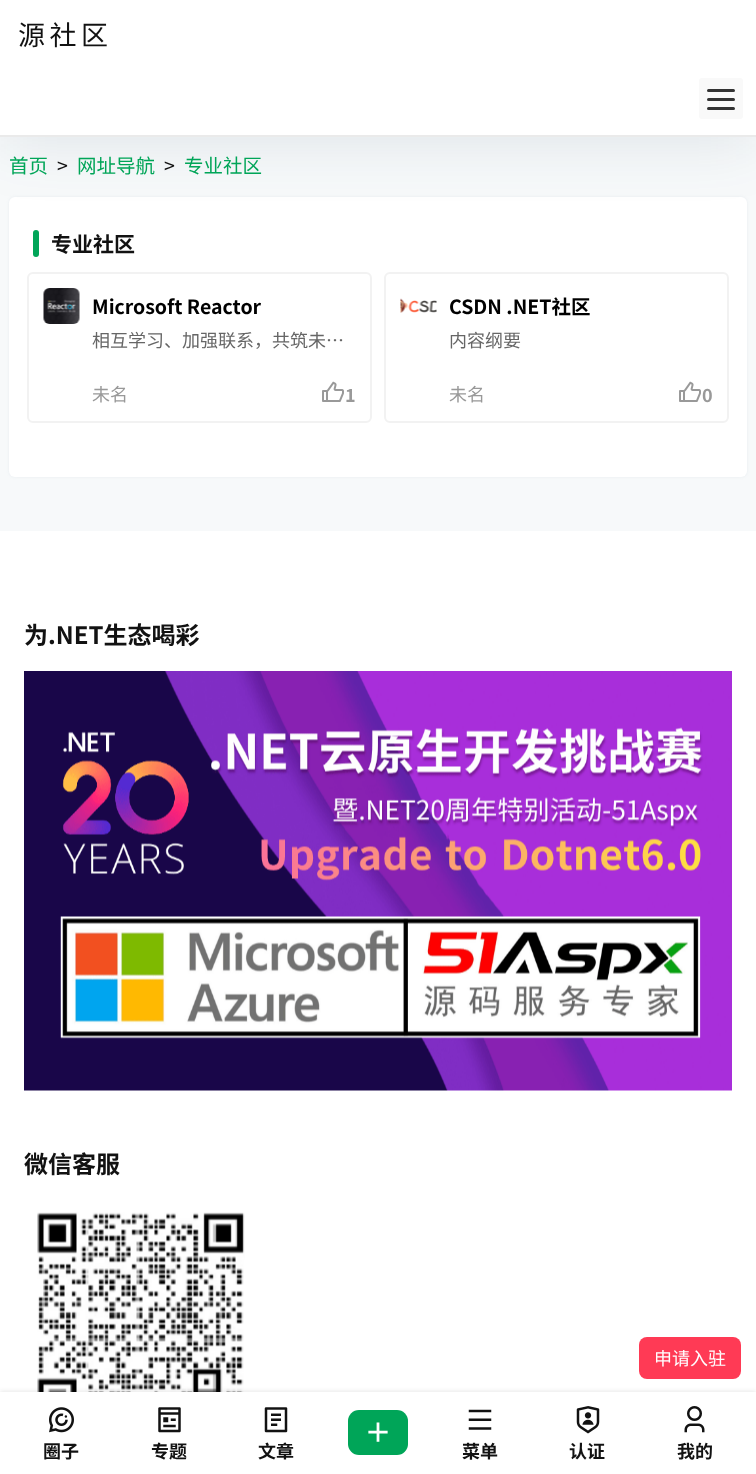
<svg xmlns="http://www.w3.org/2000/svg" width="756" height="1474">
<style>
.a{font:27px Noto Sans CJK SC;letter-spacing:4.5px;fill:#121212}
.b{font:19.5px Noto Sans CJK SC;fill:#00a558}
.c{font:19.5px Noto Sans CJK SC;fill:#121212}
.d{font:bold 21px Noto Sans CJK SC;fill:#121212}
.e{font:bold 19.5px Noto Sans CJK SC;fill:#000}
.f{font:18px Noto Sans CJK SC;fill:#666}
.g{font:18px Noto Sans CJK SC;fill:#999}
.h{font:bold 18px Noto Sans CJK SC;fill:#999}
.i{font:bold 24px Noto Sans CJK SC;fill:#121212}
.j{font:18px Noto Sans CJK SC;fill:#fff}
.k{font:bold 18px Noto Sans CJK SC;fill:#121212}
</style>
<rect width="100%" height="100%" fill="#f7f9fa"/>
<rect fill="#627c991a" filter="blur(1.5px)" x="9" y="197" width="738" height="280" rx="6"/>
<rect fill="#fff" x="9" y="197" width="738" height="280" rx="6"/>
<rect fill="#00a558" x="33" y="230" width="6" height="27" rx="3"/>
<path fill="#113a5d1a" filter="blur(30px)" d="M0 8h756v136H0z"/>
<path fill="#fff" d="M0 0h756v135H0z"/>
<path fill="#eaeaea" d="M0 135h756v2H0z"/>
<rect fill="#f9f9f9" x="699" y="78" width="44" height="41" rx="3"/>
<rect fill="#333" x="707" y="89" width="28" height="3" rx="1.5"/>
<rect fill="#333" x="707" y="98" width="28" height="3" rx="1.5"/>
<rect fill="#333" x="707" y="107" width="28" height="3" rx="1.5"/>
<rect fill="none" stroke="#f2f2f2" stroke-width="2" x="28" y="273" width="343" height="149" rx="5"/>
<image href="1.png" x="43" y="288" width="37" height="36"/>
<image href="2.png" x="322" y="381" width="22" height="21"/>
<rect fill="none" stroke="#f2f2f2" stroke-width="2" x="385" y="273" width="343" height="149" rx="5"/>
<image href="3.png" x="400" y="298" width="37" height="15"/>
<image href="2.png" x="679" y="381" width="22" height="21"/>
<path fill="#fff" d="M0 531h756v861H0z"/>
<image href="4.png" x="24" y="671" width="708" height="420"/>
<image href="5.png" x="37" y="1212" width="208" height="180"/>
<path fill="#1a1a1a1a" filter="blur(2px)" d="M0 1391h756v82H0z"/>
<path fill="#fff" d="M0 1392h756v82H0z"/>
<rect fill="#ff3a55" x="639" y="1337" width="102" height="42" rx="8"/>
<image href="6.png" x="49" y="1407" width="25" height="26"/>
<image href="7.png" x="158" y="1407" width="23" height="26"/>
<image href="8.png" x="264" y="1407" width="24" height="26"/>
<rect fill="#00a558" x="348" y="1410" width="60" height="45" rx="11"/>
<image href="9.png" x="368" y="1422" width="20" height="20"/>
<image href="10.png" x="468" y="1409" width="24" height="21"/>
<image href="11.png" x="576" y="1406" width="24" height="28"/>
<image href="12.png" x="684" y="1406" width="21" height="27"/>
<text class="a" x="18" y="45">源社区</text>
<text class="b" x="9" y="173">首页</text>
<text class="c" x="57" y="173">&gt;</text>
<text class="b" x="77" y="173">网址导航</text>
<text class="c" x="164" y="173">&gt;</text>
<text class="b" x="184" y="173">专业社区</text>
<text class="d" x="51" y="252">专业社区</text>
<text class="e" x="92" y="314">Microsoft Reactor</text>
<text class="f" x="92" y="347">相互学习、加强联系，共筑未…</text>
<text class="g" x="92" y="401">未名</text>
<text class="h" x="345" y="402">1</text>
<text class="e" x="449" y="314">CSDN .NET社区</text>
<text class="f" x="449" y="347">内容纲要</text>
<text class="g" x="449" y="401">未名</text>
<text class="h" x="702" y="402">0</text>
<text class="i" x="24" y="644">为.NET生态喝彩</text>
<text class="i" x="24" y="1173">微信客服</text>
<text class="j" x="654" y="1365">申请入驻</text>
<text class="k" x="43" y="1458">圈子</text>
<text class="k" x="151" y="1458">专题</text>
<text class="k" x="258" y="1458">文章</text>
<text class="k" x="462" y="1458">菜单</text>
<text class="k" x="569" y="1458">认证</text>
<text class="k" x="677" y="1458">我的</text>
</svg>
